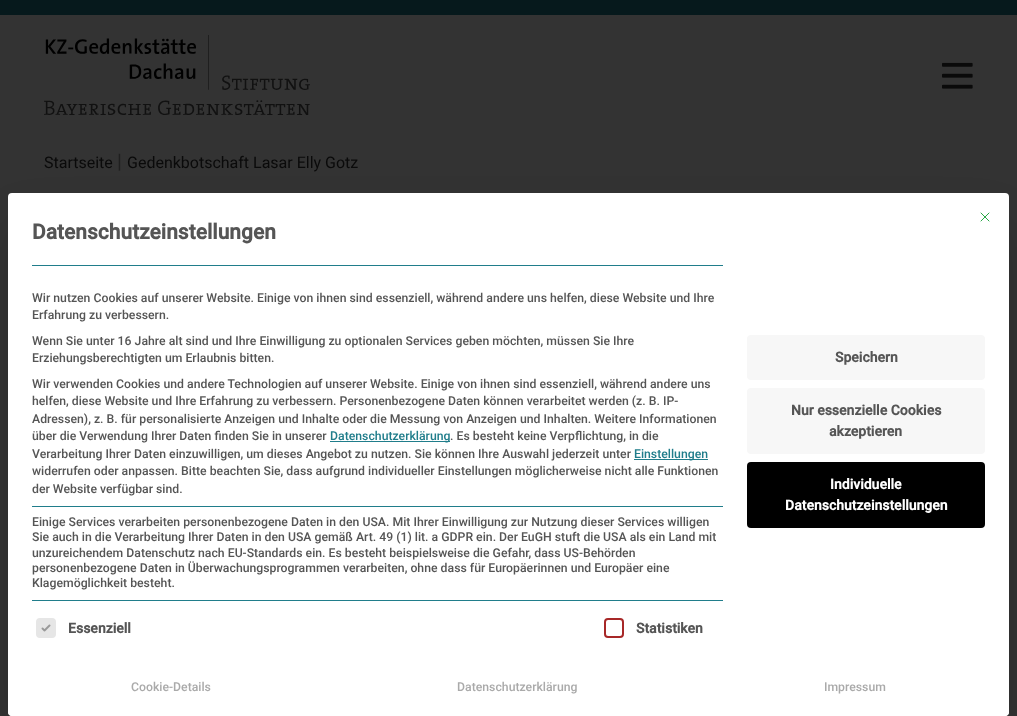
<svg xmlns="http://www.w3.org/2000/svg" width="1017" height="716">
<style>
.a{font:16px Roboto;fill:#0a0a0a}
.b{font:20px Roboto;fill:#1f1f1f}
.c{font:bold 21px Roboto;fill:#555}
.d{font:500 12.25px Roboto;fill:#555}
.e{font:500 12.25px Roboto;fill:#207d8b}
.f{font:bold 14px Roboto;fill:#555}
.g{font:bold 14px Roboto;fill:#fff}
.h{font:500 12.25px Roboto;fill:#aaa}
</style>
<rect width="100%" height="100%" fill="#333"/>
<path fill="#06191c" d="M0 0h1017v15H0z"/>
<image href="1.png" x="44" y="35" width="266" height="80"/>
<image href="2.png" x="942" y="62" width="31" height="27"/>
<path fill="#00000040" filter="blur(25px)" d="M20 230h977v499H20z"/>
<rect fill="#fff" x="8" y="193" width="1001" height="523" rx="4"/>
<path fill="none" stroke="#28a745" stroke-linecap="round" stroke-linejoin="round" d="M981 221l8-8m-8 0l8 8"/>
<path fill="#207d8b" d="M32 265h691v1H32z"/>
<path fill="#207d8b" d="M330 441h120v1H330z"/>
<path fill="#207d8b" d="M634 459h74v1H634z"/>
<path fill="#207d8b" d="M32 506h691v1H32z"/>
<path fill="#207d8b" d="M32 600h691v1H32z"/>
<rect fill="#e6e6e6" stroke="#e6e6e6" stroke-width="2" x="37" y="619" width="18" height="18" rx="3"/>
<image href="3.png" x="41" y="624" width="10" height="8"/>
<rect fill="none" stroke="#a72828" stroke-width="2" x="605" y="619" width="18" height="18" rx="3"/>
<rect fill="#f7f7f7" x="747" y="335" width="238" height="45" rx="4"/>
<rect fill="#f7f7f7" x="747" y="388" width="238" height="66" rx="4"/>
<rect fill="#000" x="747" y="462" width="238" height="66" rx="4"/>
<path fill="#fff" d="M8 663h1001v49c0 2-2 4-4 4h-993c-2 0-4-2-4-4z"/>
<text class="a" x="44" y="168">Startseite</text>
<text class="b" x="117" y="168">|</text>
<text class="a" x="127" y="168">Gedenkbotschaft Lasar Elly Gotz</text>
<text class="c" x="32" y="239">Datenschutzeinstellungen</text>
<text class="d" x="32" y="302">Wir nutzen Cookies auf unserer Website. Einige von ihnen sind essenziell, während andere uns helfen, diese Website und Ihre</text>
<text class="d" x="32" y="319">Erfahrung zu verbessern.</text>
<text class="d" x="32" y="345">Wenn Sie unter 16 Jahre alt sind und Ihre Einwilligung zu optionalen Services geben möchten, müssen Sie Ihre</text>
<text class="d" x="32" y="362">Erziehungsberechtigten um Erlaubnis bitten.</text>
<text class="d" x="32" y="388">Wir verwenden Cookies und andere Technologien auf unserer Website. Einige von ihnen sind essenziell, während andere uns</text>
<text class="d" x="32" y="405">helfen, diese Website und Ihre Erfahrung zu verbessern. Personenbezogene Daten können verarbeitet werden (z. B. IP-</text>
<text class="d" x="32" y="423">Adressen), z. B. für personalisierte Anzeigen und Inhalte oder die Messung von Anzeigen und Inhalten. Weitere Informationen</text>
<text class="d" x="32" y="440">über die Verwendung Ihrer Daten finden Sie in unserer</text>
<text class="e" x="330" y="440">Datenschutzerklärung</text>
<text class="d" x="450" y="440">. Es besteht keine Verpflichtung, in die</text>
<text class="d" x="32" y="458">Verarbeitung Ihrer Daten einzuwilligen, um dieses Angebot zu nutzen. Sie können Ihre Auswahl jederzeit unter</text>
<text class="e" x="634" y="458">Einstellungen</text>
<text class="d" x="32" y="475">widerrufen oder anpassen. Bitte beachten Sie, dass aufgrund individueller Einstellungen möglicherweise nicht alle Funktionen</text>
<text class="d" x="32" y="493">der Website verfügbar sind.</text>
<text class="d" x="32" y="526">Einige Services verarbeiten personenbezogene Daten in den USA. Mit Ihrer Einwilligung zur Nutzung dieser Services willigen</text>
<text class="d" x="32" y="541">Sie auch in die Verarbeitung Ihrer Daten in den USA gemäß Art. 49 (1) lit. a GDPR ein. Der EuGH stuft die USA als ein Land mit</text>
<text class="d" x="32" y="557">unzureichendem Datenschutz nach EU-Standards ein. Es besteht beispielsweise die Gefahr, dass US-Behörden</text>
<text class="d" x="32" y="572">personenbezogene Daten in Überwachungsprogrammen verarbeiten, ohne dass für Europäerinnen und Europäer eine</text>
<text class="d" x="32" y="587">Klagemöglichkeit besteht.</text>
<text class="f" x="68" y="633">Essenziell</text>
<text class="f" x="636" y="633">Statistiken</text>
<text class="f" x="835" y="362">Speichern</text>
<text class="f" x="791" y="415">Nur essenzielle Cookies</text>
<text class="f" x="829" y="436">akzeptieren</text>
<text class="g" x="830" y="489">Individuelle</text>
<text class="g" x="785" y="510">Datenschutzeinstellungen</text>
<text class="h" x="131" y="691">Cookie-Details</text>
<text class="h" x="457" y="691">Datenschutzerklärung</text>
<text class="h" x="824" y="691">Impressum</text>
</svg>
